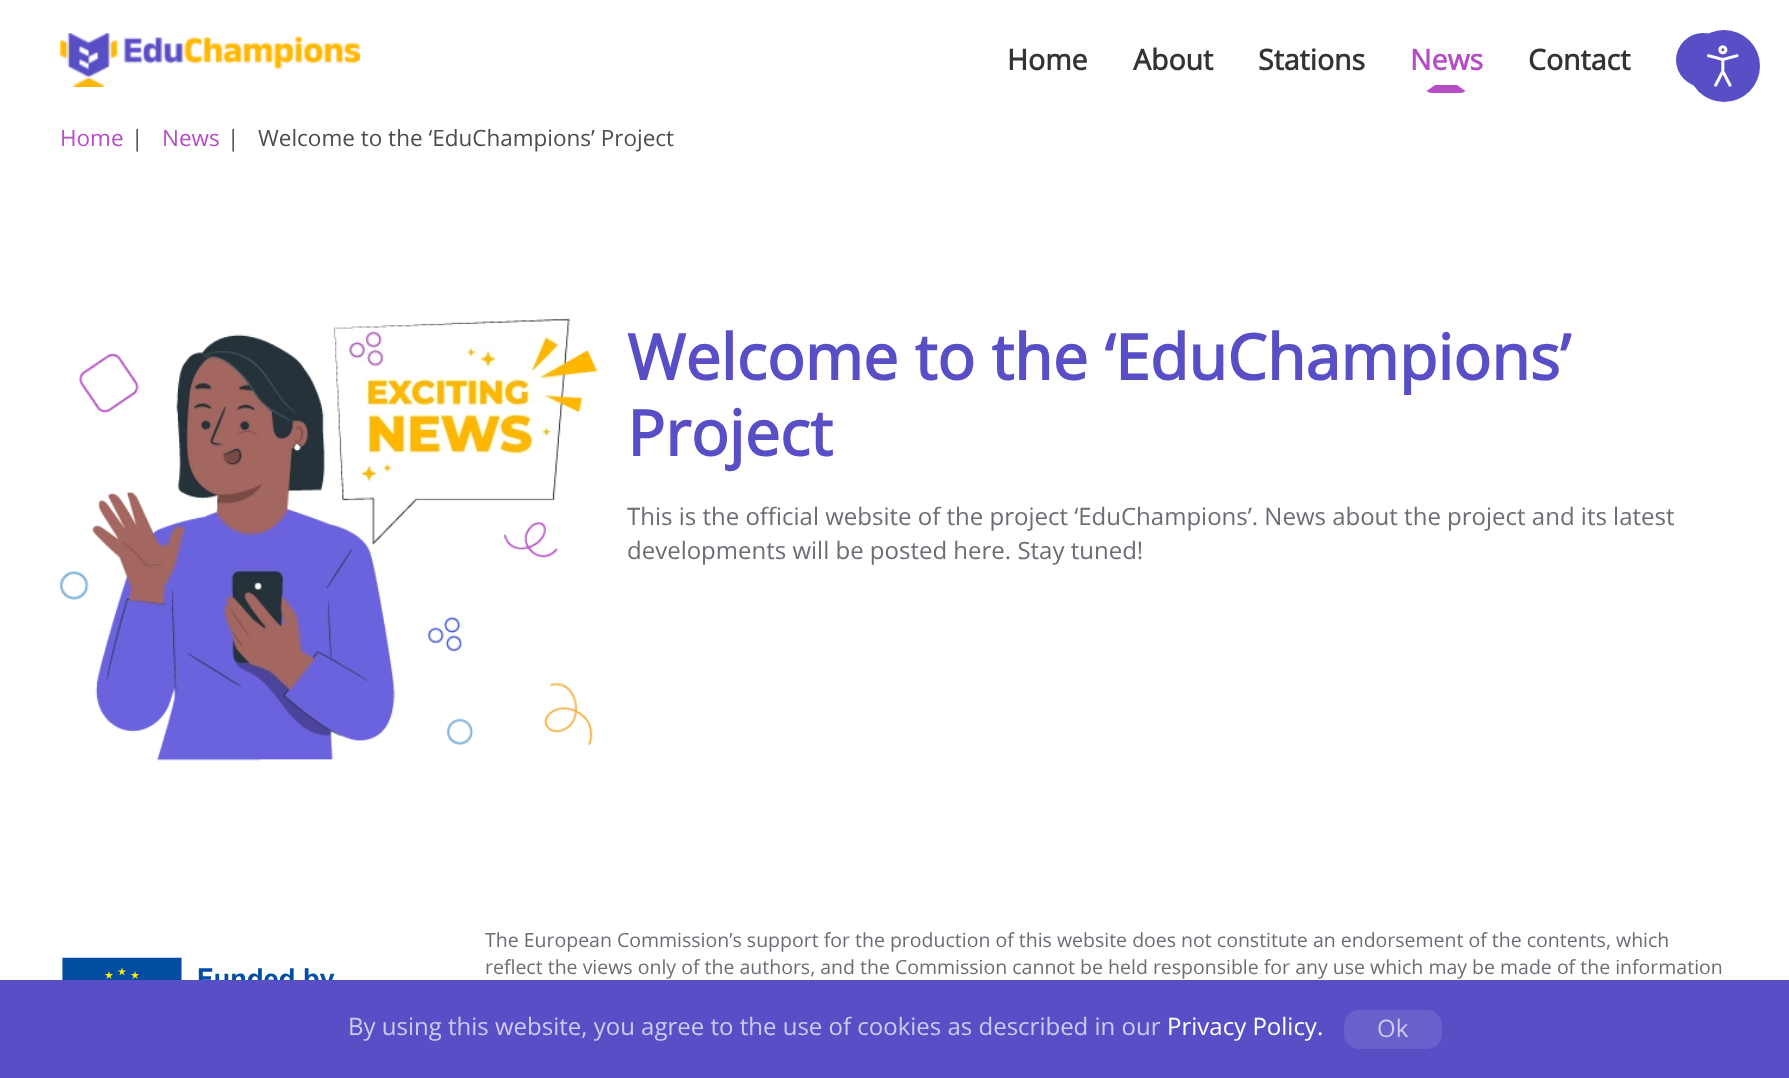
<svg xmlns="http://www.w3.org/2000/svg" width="1789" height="1078">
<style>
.a{font:bold 28.5px Open Sans;fill:#333}
.b{font:bold 28.5px Open Sans;fill:#b54ec4}
.c{font:22.5px Open Sans;fill:#b54ec4}
.d{font:22.5px Open Sans;fill:#4d4d4d}
.e{font:bold 63px Open Sans;fill:#584ec5}
.f{font:24px Open Sans;fill:#6c6d74}
.g{font:19.5px Open Sans;fill:#6c6d74}
.h{font:24px Open Sans;fill:#cdcaee}
.i{font:24px Open Sans;fill:#fff}
</style>
<rect width="100%" height="100%" fill="#fff"/>
<image href="1.png" x="60" y="33" width="300" height="54"/>
<path fill="#b54ec4" d="M1432 93h28c2.5 0 4-1 5.5-2l-8.5-6h-22l-8.5 6c1.5 1 3 2 5.5 2z"/>
<circle fill="#584ec5" cx="1703" cy="60" r="27"/>
<image href="2.png" x="60" y="318" width="537" height="443"/>
<image href="3.png" x="62" y="957" width="273" height="23"/>
<circle fill="#584ec5" cx="1724" cy="66" r="36"/>
<image href="4.png" x="1706" y="45" width="33" height="42"/>
<path fill="#584ec5" d="M0 980h1789v98H0z"/>
<rect fill="#6960cb" x="1344" y="1010" width="98" height="39" rx="15"/>
<text class="a" x="1007" y="70">Home</text>
<text class="a" x="1133" y="70">About</text>
<text class="a" x="1258" y="70">Stations</text>
<text class="b" x="1410" y="70">News</text>
<text class="a" x="1528" y="70">Contact</text>
<text class="c" x="60" y="146">Home</text>
<text class="d" x="131" y="146">|</text>
<text class="c" x="162" y="146">News</text>
<text class="d" x="227" y="146">|</text>
<text class="d" x="258" y="146">Welcome to the ‘EduChampions’ Project</text>
<text class="e" x="627" y="380">Welcome to the ‘EduChampions’</text>
<text class="e" x="627" y="456">Project</text>
<text class="f" x="627" y="525">This is the official website of the project ‘EduChampions’. News about the project and its latest</text>
<text class="f" x="627" y="559">developments will be posted here. Stay tuned!</text>
<text class="g" x="485" y="947">The European Commission’s support for the production of this website does not constitute an endorsement of the contents, which</text>
<text class="g" x="485" y="974">reflect the views only of the authors, and the Commission cannot be held responsible for any use which may be made of the information</text>
<text class="h" x="348" y="1035">By using this website, you agree to the use of cookies as described in our</text>
<text class="i" x="1167" y="1035">Privacy Policy.</text>
<text class="h" x="1377" y="1037">Ok</text>
</svg>
